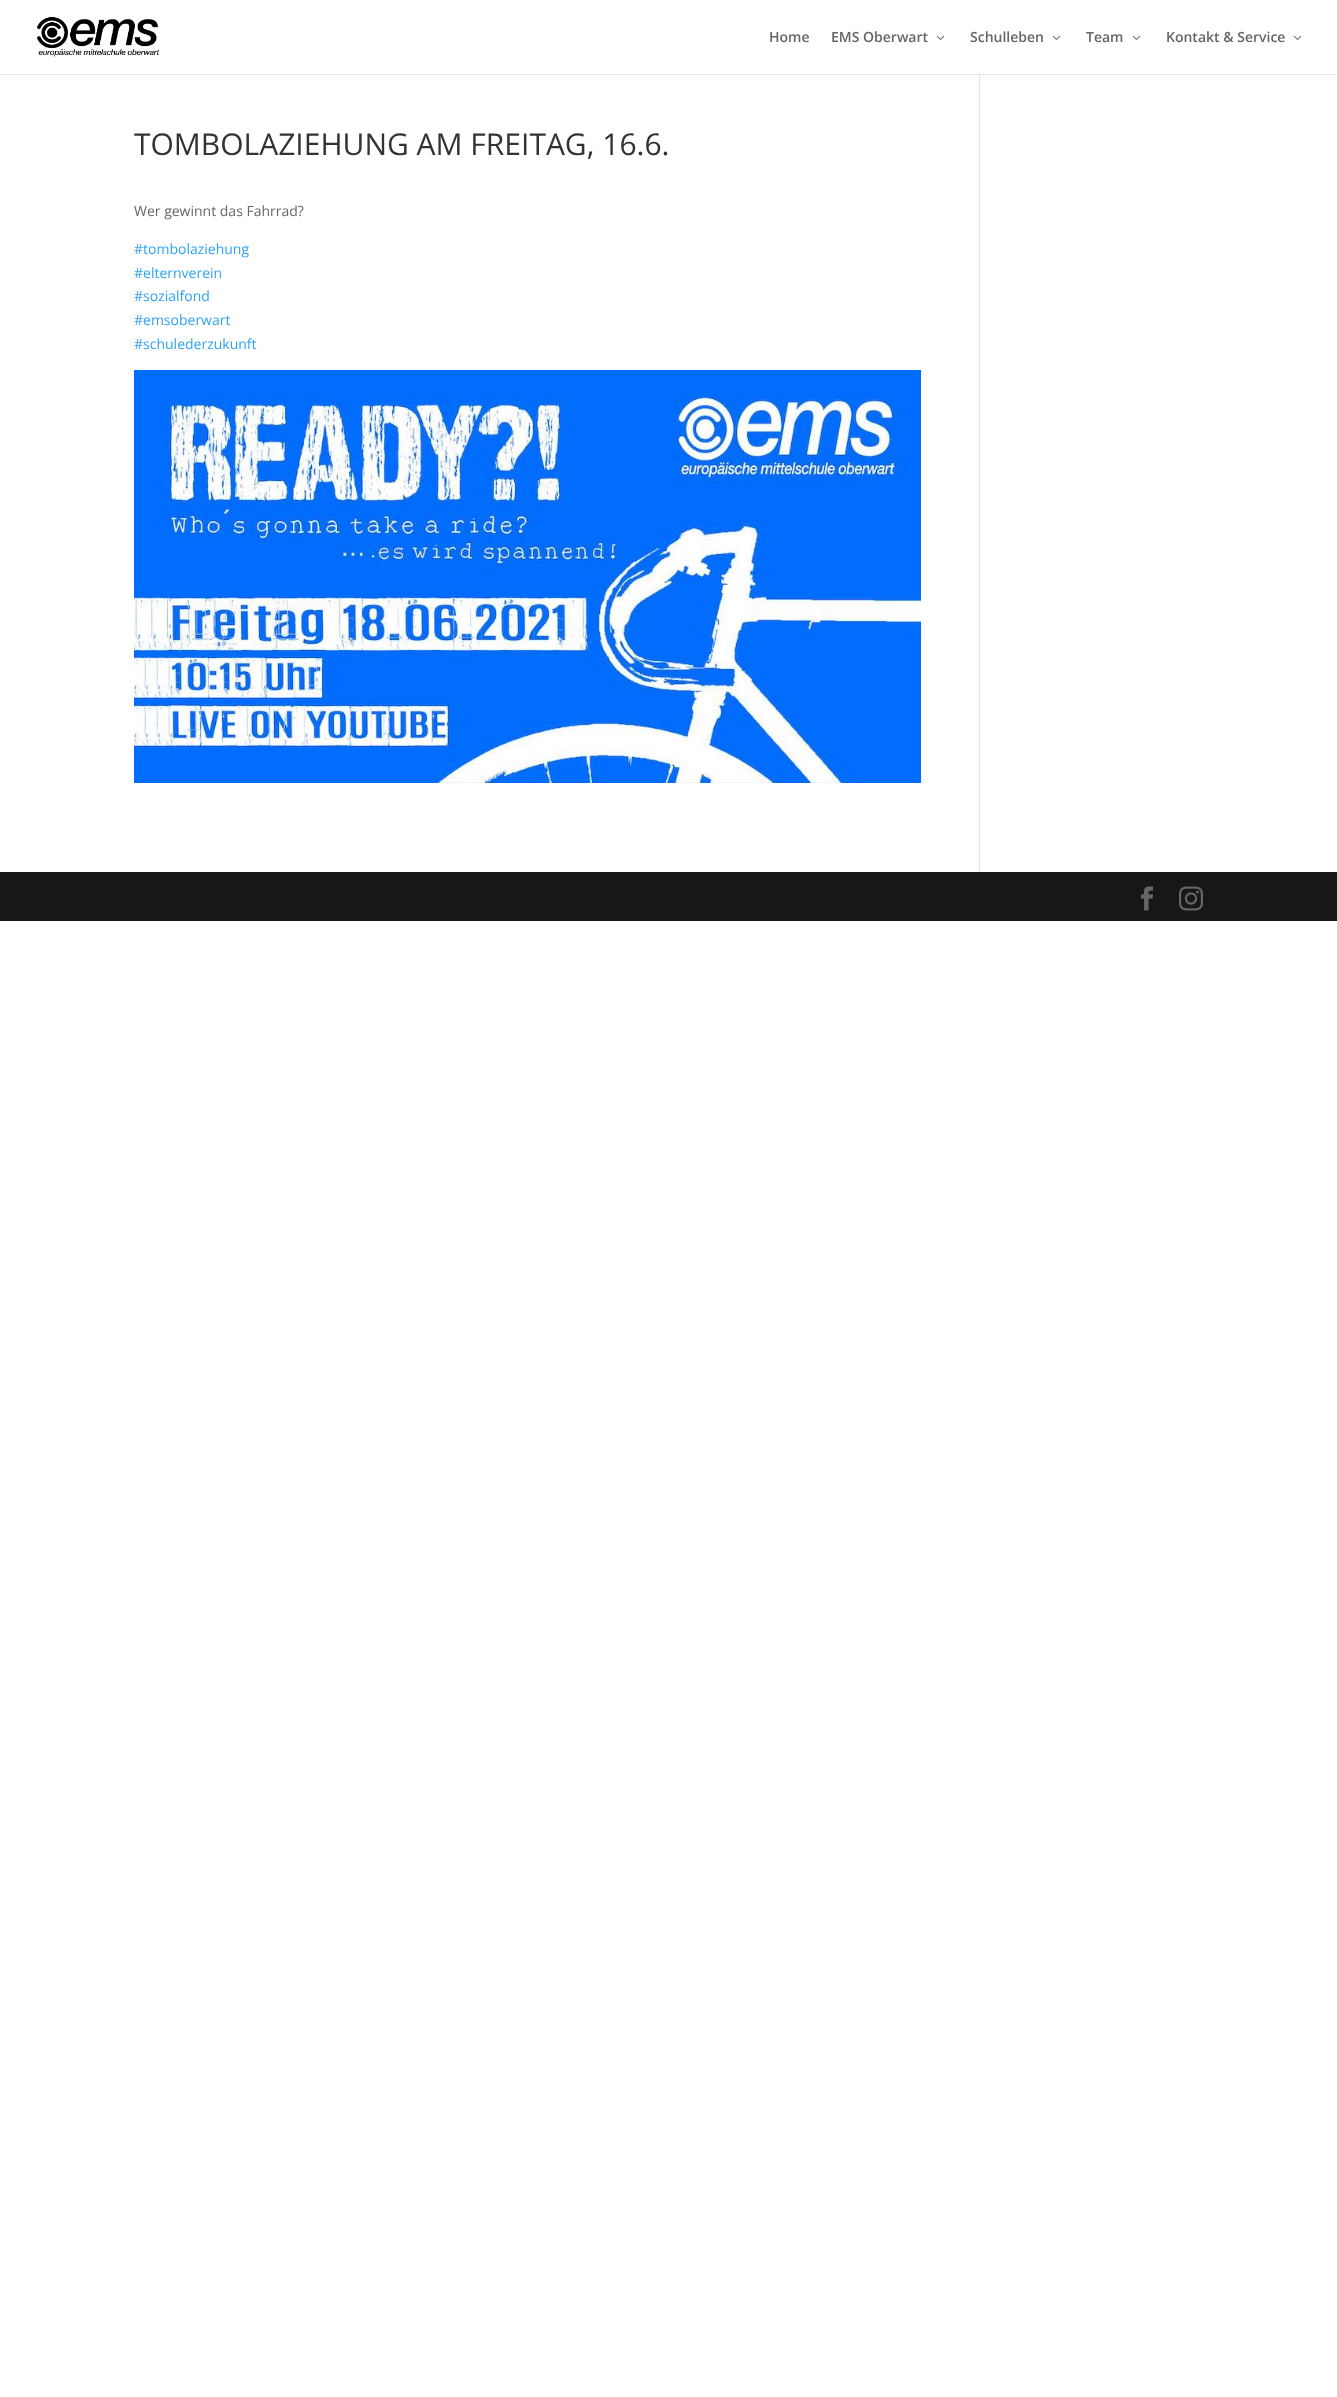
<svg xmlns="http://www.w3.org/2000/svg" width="1337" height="2397">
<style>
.a{font:600 14px Open Sans;fill:#666}
.b{font:30px Open Sans;fill:#333}
.c{font:14px Open Sans;fill:#666}
.d{font:14px Open Sans;fill:#2ea3f2}
</style>
<rect width="100%" height="100%" fill="#fff"/>
<path fill="#e6e6e6" d="M0 74h1337v1H0z"/>
<path fill="#e2e2e2" d="M979 71h1v801H979z"/>
<path fill="#fff" d="M979 71h1v3H979z"/>
<image href="1.png" x="37" y="16" width="123" height="41"/>
<image href="2.png" x="936" y="35" width="9" height="5"/>
<image href="2.png" x="1052" y="35" width="9" height="5"/>
<image href="2.png" x="1132" y="35" width="9" height="5"/>
<image href="2.png" x="1293" y="35" width="9" height="5"/>
<image href="3.png" x="134" y="370" width="787" height="413"/>
<path fill="#cbcbcb" d="M979 74h1v1H979z"/>
<path fill="#171717" d="M0 872h1337v49H0z"/>
<image href="4.png" x="1141" y="886" width="12" height="25"/>
<image href="5.png" x="1179" y="886" width="24" height="25"/>
<text class="a" x="769" y="42">Home</text>
<text class="a" x="831" y="42">EMS Oberwart</text>
<text class="a" x="970" y="42">Schulleben</text>
<text class="a" x="1086" y="42">Team</text>
<text class="a" x="1166" y="42">Kontakt &amp; Service</text>
<text class="b" x="134" y="155">TOMBOLAZIEHUNG AM FREITAG, 16.6.</text>
<text class="c" x="134" y="216">Wer gewinnt das Fahrrad?</text>
<text class="d" x="134" y="254">#tombolaziehung</text>
<text class="d" x="134" y="278">#elternverein</text>
<text class="d" x="134" y="301">#sozialfond</text>
<text class="d" x="134" y="325">#emsoberwart</text>
<text class="d" x="134" y="349">#schulederzukunft</text>
</svg>
